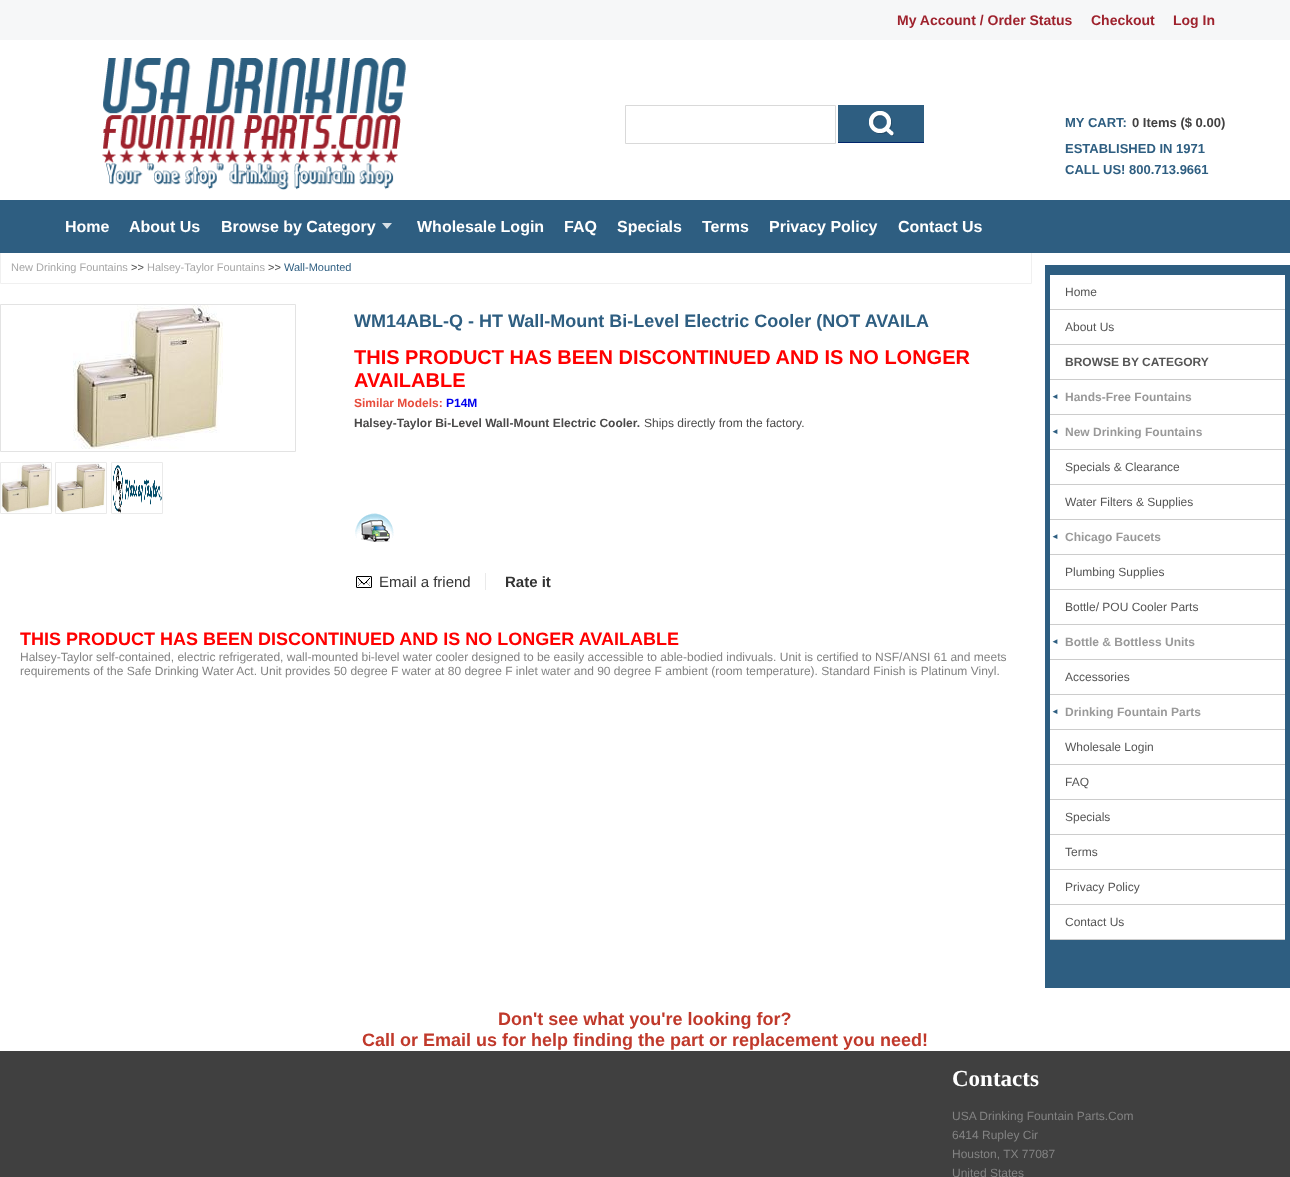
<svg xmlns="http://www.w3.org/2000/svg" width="1290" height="1177">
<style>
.a{font:bold 14px Liberation Sans;fill:#9e222d}
.b{font:bold 13px Liberation Sans;fill:#2e5e81}
.c{font:bold 13px Liberation Sans;fill:#424141}
.d{font:bold 16px Liberation Sans;fill:#fff}
.e{font:11px Liberation Sans;fill:#a7a7a7}
.f{font:11px Liberation Sans;fill:#555}
.g{font:11px Liberation Sans;fill:#2e5e81}
.h{font:bold 18px Liberation Sans;fill:#2e5e81}
.i{font:bold 20px Liberation Sans;fill:#f00}
.j{font:bold 12px Liberation Sans;fill:#e74c3c}
.k{font:bold 12px Liberation Sans;fill:#00e}
.l{font:bold 12px Liberation Sans;fill:#4a4949}
.m{font:12px Liberation Sans;fill:#4a4949}
.n{font:15px Liberation Sans;fill:#333}
.o{font:bold 15px Liberation Sans;fill:#333}
.p{font:bold 18px Liberation Sans;fill:#f00}
.q{font:12px Liberation Sans;fill:#838383}
.r{font:12px Liberation Sans;fill:#555}
.s{font:bold 12px Liberation Sans;fill:#555}
.t{font:bold 8px Liberation Sans;fill:#2e5e81}
.u{font:bold 12px Liberation Sans;fill:#999}
.v{font:bold 18px Liberation Sans;fill:#c0392b}
.w{font:bold 23px Liberation Serif;fill:#fff}
</style>
<rect width="100%" height="100%" fill="#fff"/>
<path fill="#f6f7f8" d="M0 0h1290v40H0z"/>
<image href="1.png" x="102" y="58" width="304" height="132"/>
<path fill="none" stroke="#d9d9d9" d="M625.5 105.5h210v38H625.5z"/>
<path fill="#2e5e81" d="M838 105h86v37H838z"/>
<path fill="#00246b" d="M838 142h86v1H838z"/>
<image href="2.png" x="869" y="111" width="25" height="25"/>
<path fill="none" stroke="#f0f0f0" d="M0.5 250.5h1031v33H0.5z"/>
<path fill="#2e5e81" d="M0 200h1290v53H0z"/>
<image href="3.png" x="382" y="223" width="10" height="6"/>
<path fill="none" stroke="#e3e3e3" d="M0.5 304.5h295v147H0.5z"/>
<image href="4.png" x="73" y="305" width="150" height="144"/>
<path fill="none" stroke="#eaeaea" d="M0.5 462.5h51v51H0.5z"/>
<path fill="none" stroke="#eaeaea" d="M55.5 462.5h51v51H55.5z"/>
<path fill="none" stroke="#eaeaea" d="M111.5 462.5h51v51H111.5z"/>
<image href="5.png" x="1" y="463" width="50" height="50"/>
<image href="6.png" x="56" y="463" width="50" height="50"/>
<image href="7.png" x="113" y="465" width="49" height="48"/>
<image href="8.png" x="355" y="513" width="39" height="29"/>
<image href="9.png" x="356" y="576" width="16" height="12"/>
<path fill="#eaeaea" d="M485 573h1v17H485z"/>
<path fill="#2e5e81" d="M1045 265h245v723H1045z"/>
<path fill="#ccc" d="M1050 309h235v1H1050z"/>
<path fill="#fff" d="M1050 275h235v34H1050z"/>
<path fill="#ccc" d="M1050 344h235v1H1050z"/>
<path fill="#fff" d="M1050 310h235v34H1050z"/>
<path fill="#ccc" d="M1050 379h235v1H1050z"/>
<path fill="#fff" d="M1050 345h235v34H1050z"/>
<path fill="#ccc" d="M1050 414h235v1H1050z"/>
<path fill="#fff" d="M1050 380h235v34H1050z"/>
<path fill="#ccc" d="M1050 449h235v1H1050z"/>
<path fill="#fff" d="M1050 415h235v34H1050z"/>
<path fill="#ccc" d="M1050 484h235v1H1050z"/>
<path fill="#fff" d="M1050 450h235v34H1050z"/>
<path fill="#ccc" d="M1050 519h235v1H1050z"/>
<path fill="#fff" d="M1050 485h235v34H1050z"/>
<path fill="#ccc" d="M1050 554h235v1H1050z"/>
<path fill="#fff" d="M1050 520h235v34H1050z"/>
<path fill="#ccc" d="M1050 589h235v1H1050z"/>
<path fill="#fff" d="M1050 555h235v34H1050z"/>
<path fill="#ccc" d="M1050 624h235v1H1050z"/>
<path fill="#fff" d="M1050 590h235v34H1050z"/>
<path fill="#ccc" d="M1050 659h235v1H1050z"/>
<path fill="#fff" d="M1050 625h235v34H1050z"/>
<path fill="#ccc" d="M1050 694h235v1H1050z"/>
<path fill="#fff" d="M1050 660h235v34H1050z"/>
<path fill="#ccc" d="M1050 729h235v1H1050z"/>
<path fill="#fff" d="M1050 695h235v34H1050z"/>
<path fill="#ccc" d="M1050 764h235v1H1050z"/>
<path fill="#fff" d="M1050 730h235v34H1050z"/>
<path fill="#ccc" d="M1050 799h235v1H1050z"/>
<path fill="#fff" d="M1050 765h235v34H1050z"/>
<path fill="#ccc" d="M1050 834h235v1H1050z"/>
<path fill="#fff" d="M1050 800h235v34H1050z"/>
<path fill="#ccc" d="M1050 869h235v1H1050z"/>
<path fill="#fff" d="M1050 835h235v34H1050z"/>
<path fill="#ccc" d="M1050 904h235v1H1050z"/>
<path fill="#fff" d="M1050 870h235v34H1050z"/>
<path fill="#ccc" d="M1050 939h235v1H1050z"/>
<path fill="#fff" d="M1050 905h235v34H1050z"/>
<path fill="#404040" d="M0 1051h1290v126H0z"/>
<text class="a" x="897" y="25">My Account / Order Status</text>
<text class="a" x="1091" y="25">Checkout</text>
<text class="a" x="1173" y="25">Log In</text>
<text class="b" x="1065" y="127">MY CART:</text>
<text class="c" x="1132" y="127">0 Items ($ 0.00)</text>
<text class="b" x="1065" y="153">ESTABLISHED IN 1971</text>
<text class="b" x="1065" y="174">CALL US! 800.713.9661</text>
<text class="d" x="65" y="232">Home</text>
<text class="d" x="129" y="232">About Us</text>
<text class="d" x="221" y="232">Browse by Category</text>
<text class="d" x="417" y="232">Wholesale Login</text>
<text class="d" x="564" y="232">FAQ</text>
<text class="d" x="617" y="232">Specials</text>
<text class="d" x="702" y="232">Terms</text>
<text class="d" x="769" y="232">Privacy Policy</text>
<text class="d" x="898" y="232">Contact Us</text>
<text class="e" x="11" y="271">New Drinking Fountains</text>
<text class="f" x="131" y="271">&gt;&gt;</text>
<text class="e" x="147" y="271">Halsey-Taylor Fountains</text>
<text class="f" x="268" y="271">&gt;&gt;</text>
<text class="g" x="284" y="271">Wall-Mounted</text>
<text class="h" x="354" y="327">WM14ABL-Q - HT Wall-Mount Bi-Level Electric Cooler (NOT AVAILA</text>
<text class="i" x="354" y="364">THIS PRODUCT HAS BEEN DISCONTINUED AND IS NO LONGER</text>
<text class="i" x="354" y="387">AVAILABLE</text>
<text class="j" x="354" y="407">Similar Models:</text>
<text class="k" x="446" y="407">P14M</text>
<text class="l" x="354" y="427">Halsey-Taylor Bi-Level Wall-Mount Electric Cooler.</text>
<text class="m" x="644" y="427">Ships directly from the factory.</text>
<text class="n" x="379" y="587">Email a friend</text>
<text class="o" x="505" y="587">Rate it</text>
<text class="p" x="20" y="645">THIS PRODUCT HAS BEEN DISCONTINUED AND IS NO LONGER AVAILABLE</text>
<text class="q" x="20" y="661">Halsey-Taylor self-contained, electric refrigerated, wall-mounted bi-level water cooler designed to be easily accessible to able-bodied indivuals. Unit is certified to NSF/ANSI 61 and meets</text>
<text class="q" x="20" y="675">requirements of the Safe Drinking Water Act. Unit provides 50 degree F water at 80 degree F inlet water and 90 degree F ambient (room temperature). Standard Finish is Platinum Vinyl.</text>
<text class="r" x="1065" y="296">Home</text>
<text class="r" x="1065" y="331">About Us</text>
<text class="s" x="1065" y="366">BROWSE BY CATEGORY</text>
<text class="t" x="1051" y="399">◄</text>
<text class="u" x="1065" y="401">Hands-Free Fountains</text>
<text class="t" x="1051" y="434">◄</text>
<text class="u" x="1065" y="436">New Drinking Fountains</text>
<text class="r" x="1065" y="471">Specials &amp; Clearance</text>
<text class="r" x="1065" y="506">Water Filters &amp; Supplies</text>
<text class="t" x="1051" y="539">◄</text>
<text class="u" x="1065" y="541">Chicago Faucets</text>
<text class="r" x="1065" y="576">Plumbing Supplies</text>
<text class="r" x="1065" y="611">Bottle/ POU Cooler Parts</text>
<text class="t" x="1051" y="644">◄</text>
<text class="u" x="1065" y="646">Bottle &amp; Bottless Units</text>
<text class="r" x="1065" y="681">Accessories</text>
<text class="t" x="1051" y="714">◄</text>
<text class="u" x="1065" y="716">Drinking Fountain Parts</text>
<text class="r" x="1065" y="751">Wholesale Login</text>
<text class="r" x="1065" y="786">FAQ</text>
<text class="r" x="1065" y="821">Specials</text>
<text class="r" x="1065" y="856">Terms</text>
<text class="r" x="1065" y="891">Privacy Policy</text>
<text class="r" x="1065" y="926">Contact Us</text>
<text class="v" x="498" y="1025">Don't see what you're looking for?</text>
<text class="v" x="362" y="1046">Call or Email us for help finding the part or replacement you need!</text>
<text class="w" x="952" y="1086">Contacts</text>
<text class="q" x="952" y="1120">USA Drinking Fountain Parts.Com</text>
<text class="q" x="952" y="1139">6414 Rupley Cir</text>
<text class="q" x="952" y="1158">Houston, TX 77087</text>
<text class="q" x="952" y="1177">United States</text>
</svg>
